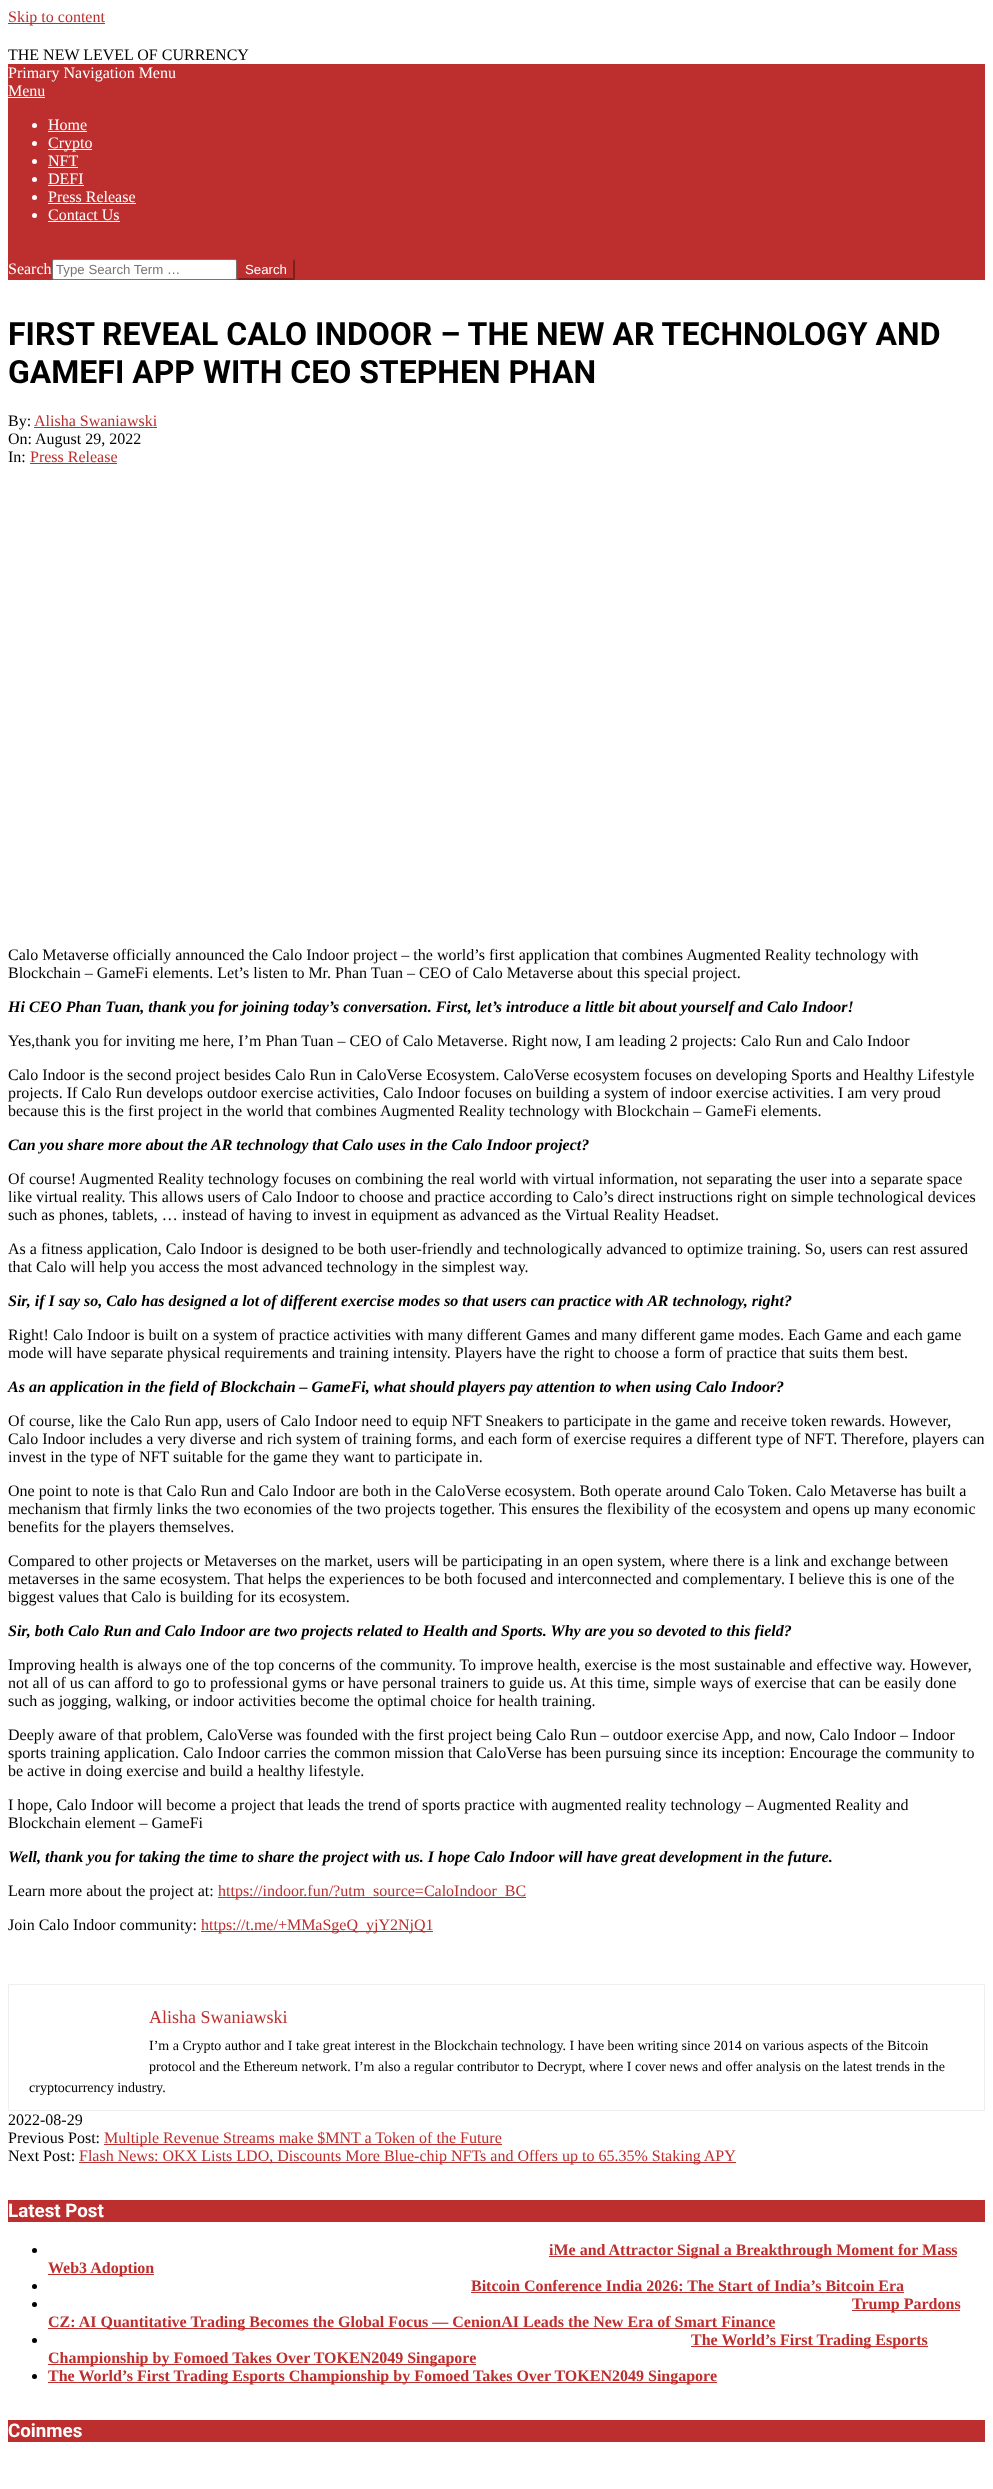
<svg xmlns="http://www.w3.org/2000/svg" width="993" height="2489">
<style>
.a{font:16px Liberation Serif;fill:#bd2e2e}
.b{font:16px Liberation Serif;fill:#000}
.c{font:16px Liberation Serif;fill:#fff}
.d{font:13.25px Liberation Sans;fill:#757575}
.e{font:13.25px Liberation Sans;fill:#fff}
.f{font:bold 32px Roboto;fill:#000}
.g{font:italic bold 16px Liberation Serif;fill:#000}
.h{font:18px Liberation Serif;fill:#bd2e2e}
.i{font:14px Liberation Serif;fill:#000}
.j{font:bold 18.75px Roboto;fill:#fff}
.k{font:bold 16px Liberation Serif;fill:#bd2e2e}
</style>
<rect width="100%" height="100%" fill="#fff"/>
<path fill="#bd2e2e" d="M8 23h97v1H8z"/>
<path fill="#bd2e2e" d="M8 64h977v216H8z"/>
<path fill="#fff" d="M8 97h37v1H8z"/>
<circle fill="#fff" cx="34.5" cy="125.5" r="2.5"/>
<path fill="#fff" d="M48 131h39v1H48z"/>
<circle fill="#fff" cx="34.5" cy="143.5" r="2.5"/>
<path fill="#fff" d="M48 149h44v1H48z"/>
<circle fill="#fff" cx="34.5" cy="161.5" r="2.5"/>
<path fill="#fff" d="M48 167h30v1H48z"/>
<circle fill="#fff" cx="34.5" cy="179.5" r="2.5"/>
<path fill="#fff" d="M48 185h36v1H48z"/>
<circle fill="#fff" cx="34.5" cy="197.5" r="2.5"/>
<path fill="#fff" d="M48 203h88v1H48z"/>
<circle fill="#fff" cx="34.5" cy="215.5" r="2.5"/>
<path fill="#fff" d="M48 221h72v1H48z"/>
<rect fill="#fff" stroke="#767676" x="52.5" y="259.5" width="184" height="20" rx="1.5"/>
<path fill="#7e1f1f" d="M295 259v21l-2-2v-17z"/>
<path fill="#7e1f1f" d="M295 280h-58l2-2h54z"/>
<path fill="#bd2e2e" d="M237 280v-21l2 2v17z"/>
<path fill="#bd2e2e" d="M34 427h123v1H34z"/>
<path fill="#bd2e2e" d="M30 463h87v1H30z"/>
<path fill="#bd2e2e" d="M218 1897h308v1H218z"/>
<path fill="#bd2e2e" d="M201 1931h232v1H201z"/>
<path fill="none" stroke="#eee" d="M8.5 1984.5h976v126H8.5z"/>
<path fill="#bd2e2e" d="M104 2144h398v1H104z"/>
<path fill="#bd2e2e" d="M79 2162h657v1H79z"/>
<path fill="#bd2e2e" d="M8 2200h977v22H8z"/>
<circle fill="#000" cx="34.5" cy="2250.5" r="2.5"/>
<path fill="#bd2e2e" d="M549 2256h408v1H549z"/>
<path fill="#bd2e2e" d="M48 2274h106v1H48z"/>
<circle fill="#000" cx="34.5" cy="2286.5" r="2.5"/>
<path fill="#bd2e2e" d="M471 2292h433v1H471z"/>
<circle fill="#000" cx="34.5" cy="2304.5" r="2.5"/>
<path fill="#bd2e2e" d="M852 2310h108v1H852z"/>
<path fill="#bd2e2e" d="M48 2328h727v1H48z"/>
<circle fill="#000" cx="34.5" cy="2340.5" r="2.5"/>
<path fill="#bd2e2e" d="M691 2346h237v1H691z"/>
<path fill="#bd2e2e" d="M48 2364h428v1H48z"/>
<circle fill="#000" cx="34.5" cy="2376.5" r="2.5"/>
<path fill="#bd2e2e" d="M48 2382h669v1H48z"/>
<path fill="#bd2e2e" d="M8 2420h977v22H8z"/>
<text class="a" x="8" y="22">Skip to content</text>
<text class="b" x="8" y="60">THE NEW LEVEL OF CURRENCY</text>
<text class="c" x="8" y="78">Primary Navigation Menu</text>
<text class="c" x="8" y="96">Menu</text>
<text class="c" x="48" y="130">Home</text>
<text class="c" x="48" y="148">Crypto</text>
<text class="c" x="48" y="166">NFT</text>
<text class="c" x="48" y="184">DEFI</text>
<text class="c" x="48" y="202">Press Release</text>
<text class="c" x="48" y="220">Contact Us</text>
<text class="c" x="8" y="274">Search</text>
<text class="d" x="56" y="274">Type Search Term …</text>
<text class="e" x="245" y="274">Search</text>
<text class="f" x="8" y="345">FIRST REVEAL CALO INDOOR – THE NEW AR TECHNOLOGY AND</text>
<text class="f" x="8" y="383">GAMEFI APP WITH CEO STEPHEN PHAN</text>
<text class="b" x="8" y="426">By:</text>
<text class="a" x="34" y="426">Alisha Swaniawski</text>
<text class="b" x="8" y="444">On:</text>
<text class="b" x="35" y="444">August 29, 2022</text>
<text class="b" x="8" y="462">In:</text>
<text class="a" x="30" y="462">Press Release</text>
<text class="b" x="8" y="960">Calo Metaverse officially announced the Calo Indoor project – the world’s first application that combines Augmented Reality technology with</text>
<text class="b" x="8" y="978">Blockchain – GameFi elements. Let’s listen to Mr. Phan Tuan – CEO of Calo Metaverse about this special project.</text>
<text class="g" x="8" y="1012">Hi CEO Phan Tuan, thank you for joining today’s conversation. First, let’s introduce a little bit about yourself and Calo Indoor!</text>
<text class="b" x="8" y="1046">Yes,thank you for inviting me here, I’m Phan Tuan – CEO of Calo Metaverse. Right now, I am leading 2 projects: Calo Run and Calo Indoor</text>
<text class="b" x="8" y="1080">Calo Indoor is the second project besides Calo Run in CaloVerse Ecosystem. CaloVerse ecosystem focuses on developing Sports and Healthy Lifestyle</text>
<text class="b" x="8" y="1098">projects. If Calo Run develops outdoor exercise activities, Calo Indoor focuses on building a system of indoor exercise activities. I am very proud</text>
<text class="b" x="8" y="1116">because this is the first project in the world that combines Augmented Reality technology with Blockchain – GameFi elements.</text>
<text class="g" x="8" y="1150">Can you share more about the AR technology that Calo uses in the Calo Indoor project?</text>
<text class="b" x="8" y="1184">Of course! Augmented Reality technology focuses on combining the real world with virtual information, not separating the user into a separate space</text>
<text class="b" x="8" y="1202">like virtual reality. This allows users of Calo Indoor to choose and practice according to Calo’s direct instructions right on simple technological devices</text>
<text class="b" x="8" y="1220">such as phones, tablets, … instead of having to invest in equipment as advanced as the Virtual Reality Headset.</text>
<text class="b" x="8" y="1254">As a fitness application, Calo Indoor is designed to be both user-friendly and technologically advanced to optimize training. So, users can rest assured</text>
<text class="b" x="8" y="1272">that Calo will help you access the most advanced technology in the simplest way.</text>
<text class="g" x="8" y="1306">Sir, if I say so, Calo has designed a lot of different exercise modes so that users can practice with AR technology, right?</text>
<text class="b" x="8" y="1340">Right! Calo Indoor is built on a system of practice activities with many different Games and many different game modes. Each Game and each game</text>
<text class="b" x="8" y="1358">mode will have separate physical requirements and training intensity. Players have the right to choose a form of practice that suits them best.</text>
<text class="g" x="8" y="1392">As an application in the field of Blockchain – GameFi, what should players pay attention to when using Calo Indoor?</text>
<text class="b" x="8" y="1426">Of course, like the Calo Run app, users of Calo Indoor need to equip NFT Sneakers to participate in the game and receive token rewards. However,</text>
<text class="b" x="8" y="1444">Calo Indoor includes a very diverse and rich system of training forms, and each form of exercise requires a different type of NFT. Therefore, players can</text>
<text class="b" x="8" y="1462">invest in the type of NFT suitable for the game they want to participate in.</text>
<text class="b" x="8" y="1496">One point to note is that Calo Run and Calo Indoor are both in the CaloVerse ecosystem. Both operate around Calo Token. Calo Metaverse has built a</text>
<text class="b" x="8" y="1514">mechanism that firmly links the two economies of the two projects together. This ensures the flexibility of the ecosystem and opens up many economic</text>
<text class="b" x="8" y="1532">benefits for the players themselves.</text>
<text class="b" x="8" y="1566">Compared to other projects or Metaverses on the market, users will be participating in an open system, where there is a link and exchange between</text>
<text class="b" x="8" y="1584">metaverses in the same ecosystem. That helps the experiences to be both focused and interconnected and complementary. I believe this is one of the</text>
<text class="b" x="8" y="1602">biggest values that Calo is building for its ecosystem.</text>
<text class="g" x="8" y="1636">Sir, both Calo Run and Calo Indoor are two projects related to Health and Sports. Why are you so devoted to this field?</text>
<text class="b" x="8" y="1670">Improving health is always one of the top concerns of the community. To improve health, exercise is the most sustainable and effective way. However,</text>
<text class="b" x="8" y="1688">not all of us can afford to go to professional gyms or have personal trainers to guide us. At this time, simple ways of exercise that can be easily done</text>
<text class="b" x="8" y="1706">such as jogging, walking, or indoor activities become the optimal choice for health training.</text>
<text class="b" x="8" y="1740">Deeply aware of that problem, CaloVerse was founded with the first project being Calo Run – outdoor exercise App, and now, Calo Indoor – Indoor</text>
<text class="b" x="8" y="1758">sports training application. Calo Indoor carries the common mission that CaloVerse has been pursuing since its inception: Encourage the community to</text>
<text class="b" x="8" y="1776">be active in doing exercise and build a healthy lifestyle.</text>
<text class="b" x="8" y="1810">I hope, Calo Indoor will become a project that leads the trend of sports practice with augmented reality technology – Augmented Reality and</text>
<text class="b" x="8" y="1828">Blockchain element – GameFi</text>
<text class="g" x="8" y="1862">Well, thank you for taking the time to share the project with us. I hope Calo Indoor will have great development in the future.</text>
<text class="b" x="8" y="1896">Learn more about the project at:</text>
<text class="a" x="218" y="1896">https://indoor.fun/?utm_source=CaloIndoor_BC</text>
<text class="b" x="8" y="1930">Join Calo Indoor community:</text>
<text class="a" x="201" y="1930">https://t.me/+MMaSgeQ_yjY2NjQ1</text>
<text class="h" x="149" y="2023">Alisha Swaniawski</text>
<text class="i" x="149" y="2050">I’m a Crypto author and I take great interest in the Blockchain technology. I have been writing since 2014 on various aspects of the Bitcoin</text>
<text class="i" x="149" y="2071">protocol and the Ethereum network. I’m also a regular contributor to Decrypt, where I cover news and offer analysis on the latest trends in the</text>
<text class="i" x="29" y="2092">cryptocurrency industry.</text>
<text class="b" x="8" y="2125">2022-08-29</text>
<text class="b" x="8" y="2143">Previous Post:</text>
<text class="a" x="104" y="2143">Multiple Revenue Streams make $MNT a Token of the Future</text>
<text class="b" x="8" y="2161">Next Post:</text>
<text class="a" x="79" y="2161">Flash News: OKX Lists LDO, Discounts More Blue-chip NFTs and Offers up to 65.35% Staking APY</text>
<text class="j" x="8" y="2217">Latest Post</text>
<text class="k" x="549" y="2255">iMe and Attractor Signal a Breakthrough Moment for Mass</text>
<text class="k" x="48" y="2273">Web3 Adoption</text>
<text class="k" x="471" y="2291">Bitcoin Conference India 2026: The Start of India’s Bitcoin Era</text>
<text class="k" x="852" y="2309">Trump Pardons</text>
<text class="k" x="48" y="2327">CZ: AI Quantitative Trading Becomes the Global Focus — CenionAI Leads the New Era of Smart Finance</text>
<text class="k" x="691" y="2345">The World’s First Trading Esports</text>
<text class="k" x="48" y="2363">Championship by Fomoed Takes Over TOKEN2049 Singapore</text>
<text class="k" x="48" y="2381">The World’s First Trading Esports Championship by Fomoed Takes Over TOKEN2049 Singapore</text>
<text class="j" x="8" y="2437">Coinmes</text>
</svg>
